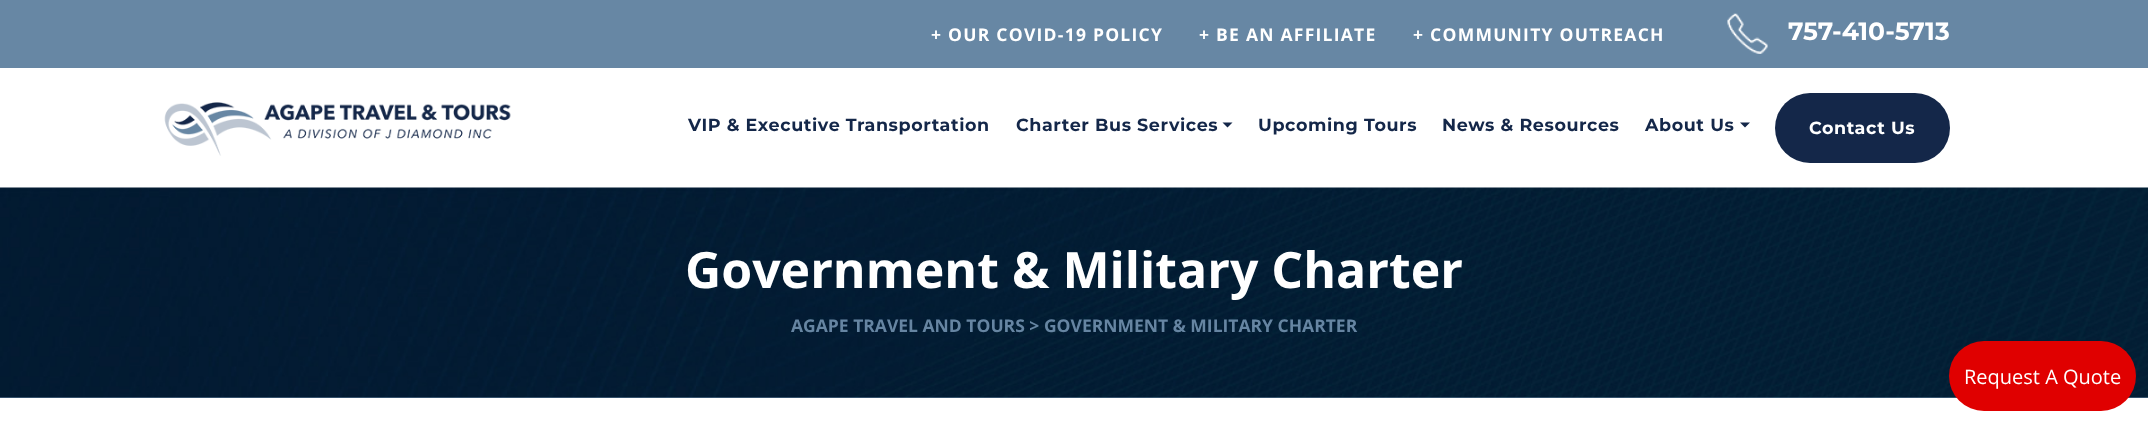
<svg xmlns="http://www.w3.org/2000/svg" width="2148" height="436">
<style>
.a{font:bold 17.5px Open Sans;letter-spacing:1.25px;fill:#fff}
.b{font:bold 25px Montserrat;fill:#fff}
.c{font:bold 17.5px Montserrat;letter-spacing:0.6px;fill:#142749}
.d{font:bold 17.5px Montserrat;letter-spacing:0.6px;fill:#fff}
.e{font:bold 50px Open Sans;fill:#fff}
.f{font:bold 17.5px Open Sans;fill:#6685a2}
.g{font:20px Open Sans;fill:#fff}
</style>
<rect width="100%" height="100%" fill="#fff"/>
<path fill="#6787a4" d="M0 0h2148v68H0z"/>
<image href="1.png" x="1727" y="13" width="41" height="41"/>
<image href="2.png" x="164" y="102" width="347" height="54"/>
<path fill="#142749" d="M1222.5 122.5h10l-5 5z"/>
<path fill="#142749" d="M1740 122.5h10l-5 5z"/>
<rect fill="#142749" x="1775" y="93" width="175" height="70" rx="35"/>
<path fill="#6787a4" d="M0 397h2148v1H0z"/>
<image href="3.png" x="0" y="187" width="2148" height="211"/>
<rect fill="#e00000" x="1949" y="341" width="187" height="70" rx="35"/>
<text class="a" x="931" y="41">+ OUR COVID-19 POLICY</text>
<text class="a" x="1199" y="41">+ BE AN AFFILIATE</text>
<text class="a" x="1413" y="41">+ COMMUNITY OUTREACH</text>
<text class="b" x="1788" y="40">757-410-5713</text>
<text class="c" x="688" y="131">VIP &amp; Executive Transportation</text>
<text class="c" x="1016" y="131">Charter Bus Services</text>
<text class="c" x="1258" y="131">Upcoming Tours</text>
<text class="c" x="1442" y="131">News &amp; Resources</text>
<text class="c" x="1645" y="131">About Us</text>
<text class="d" x="1809" y="134">Contact Us</text>
<text class="e" x="685" y="288">Government &amp; Military Charter</text>
<text class="f" x="791" y="332">AGAPE TRAVEL AND TOURS &gt; GOVERNMENT &amp; MILITARY CHARTER</text>
<text class="g" x="1964" y="384">Request A Quote</text>
</svg>
